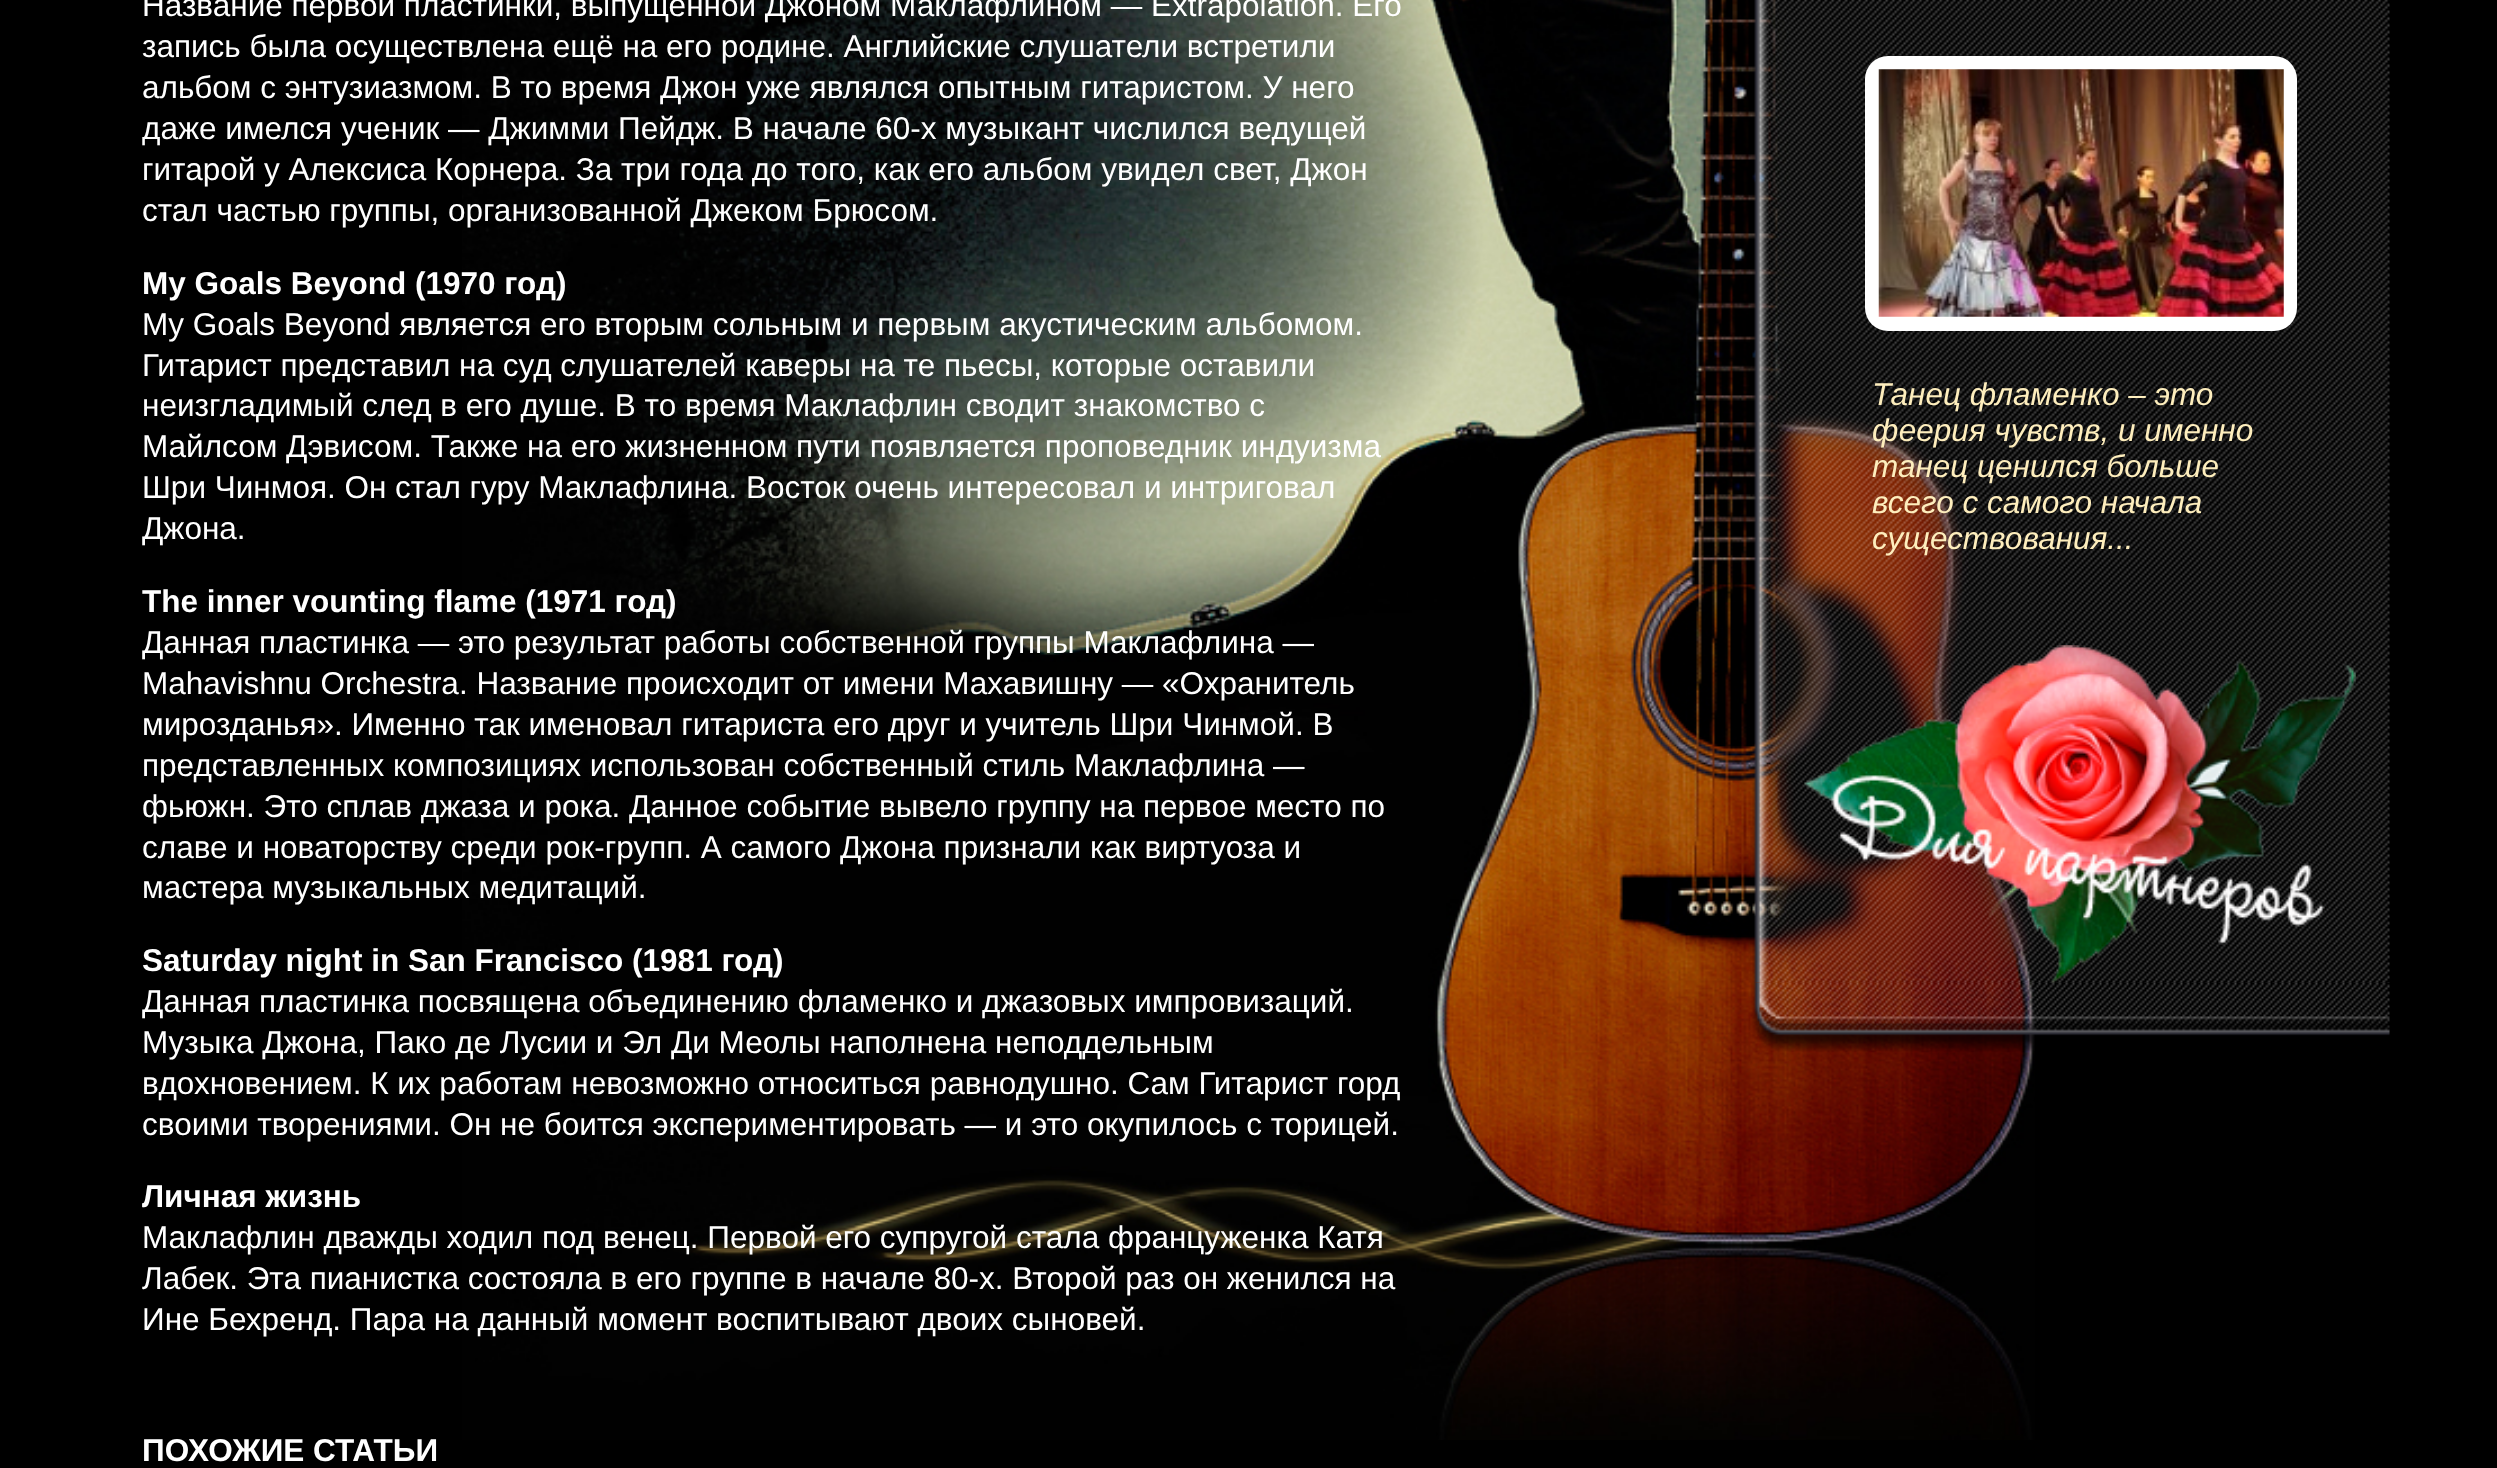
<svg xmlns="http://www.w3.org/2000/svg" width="2497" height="1468">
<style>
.a{font:31.5px Liberation Sans;fill:#fff}
.b{font:bold 31.5px Liberation Sans;fill:#fff}
.c{font:italic 31.5px Liberation Sans;fill:#feeebd}
</style>
<rect width="100%" height="100%" fill="#000"/>
<image href="1.png" x="462" y="0" width="1573" height="1440"/>
<image href="2.png" x="1750" y="0" width="640" height="983"/>
<rect fill="#fff" x="1865" y="56" width="432" height="275" rx="23"/>
<image href="3.png" x="1878" y="69" width="406" height="248"/>
<image href="5.png" x="1751" y="982" width="639" height="70"/>
<image href="4.png" x="1804" y="645" width="552" height="338"/>
<text class="a" x="142" y="16">Название первой пластинки, выпущенной Джоном Маклафлином — Extrapolation. Его</text>
<text class="a" x="142" y="57">запись была осуществлена ещё на его родине. Английские слушатели встретили</text>
<text class="a" x="142" y="98">альбом с энтузиазмом. В то время Джон уже являлся опытным гитаристом. У него</text>
<text class="a" x="142" y="139">даже имелся ученик — Джимми Пейдж. В начале 60-х музыкант числился ведущей</text>
<text class="a" x="142" y="180">гитарой у Алексиса Корнера. За три года до того, как его альбом увидел свет, Джон</text>
<text class="a" x="142" y="221">стал частью группы, организованной Джеком Брюсом.</text>
<text class="b" x="142" y="294">My Goals Beyond (1970 год)</text>
<text class="a" x="142" y="335">My Goals Beyond является его вторым сольным и первым акустическим альбомом.</text>
<text class="a" x="142" y="376">Гитарист представил на суд слушателей каверы на те пьесы, которые оставили</text>
<text class="a" x="142" y="416">неизгладимый след в его душе. В то время Маклафлин сводит знакомство с</text>
<text class="a" x="142" y="457">Майлсом Дэвисом. Также на его жизненном пути появляется проповедник индуизма</text>
<text class="a" x="142" y="498">Шри Чинмоя. Он стал гуру Маклафлина. Восток очень интересовал и интриговал</text>
<text class="a" x="142" y="539">Джона.</text>
<text class="b" x="142" y="612">The inner vounting flame (1971 год)</text>
<text class="a" x="142" y="653">Данная пластинка — это результат работы собственной группы Маклафлина —</text>
<text class="a" x="142" y="694">Mahavishnu Orchestra. Название происходит от имени Махавишну — «Охранитель</text>
<text class="a" x="142" y="735">мирозданья». Именно так именовал гитариста его друг и учитель Шри Чинмой. В</text>
<text class="a" x="142" y="776">представленных композициях использован собственный стиль Маклафлина —</text>
<text class="a" x="142" y="817">фьюжн. Это сплав джаза и рока. Данное событие вывело группу на первое место по</text>
<text class="a" x="142" y="858">славе и новаторству среди рок-групп. А самого Джона признали как виртуоза и</text>
<text class="a" x="142" y="898">мастера музыкальных медитаций.</text>
<text class="b" x="142" y="971">Saturday night in San Francisco (1981 год)</text>
<text class="a" x="142" y="1012">Данная пластинка посвящена объединению фламенко и джазовых импровизаций.</text>
<text class="a" x="142" y="1053">Музыка Джона, Пако де Лусии и Эл Ди Меолы наполнена неподдельным</text>
<text class="a" x="142" y="1094">вдохновением. К их работам невозможно относиться равнодушно. Сам Гитарист горд</text>
<text class="a" x="142" y="1135">своими творениями. Он не боится экспериментировать — и это окупилось с торицей.</text>
<text class="b" x="142" y="1207">Личная жизнь</text>
<text class="a" x="142" y="1248">Маклафлин дважды ходил под венец. Первой его супругой стала француженка Катя</text>
<text class="a" x="142" y="1289">Лабек. Эта пианистка состояла в его группе в начале 80-х. Второй раз он женился на</text>
<text class="a" x="142" y="1330">Ине Бехренд. Пара на данный момент воспитывают двоих сыновей.</text>
<text class="b" x="142" y="1461">ПОХОЖИЕ СТАТЬИ</text>
<text class="c" x="1872" y="405">Танец фламенко – это</text>
<text class="c" x="1872" y="441">феерия чувств, и именно</text>
<text class="c" x="1872" y="477">танец ценился больше</text>
<text class="c" x="1872" y="513">всего с самого начала</text>
<text class="c" x="1872" y="549">существования...</text>
</svg>
